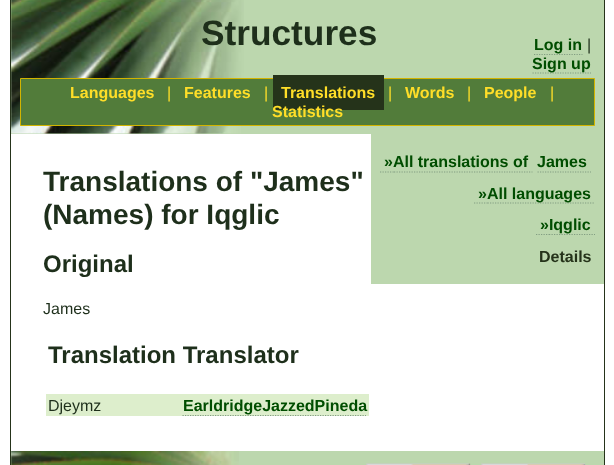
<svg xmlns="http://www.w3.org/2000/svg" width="614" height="465">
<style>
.a{font:bold 35.25px Liberation Sans;fill:#1e2f1b}
.b{font:bold 16px Liberation Sans;fill:#004d00}
.c{font:16px Liberation Sans;fill:#1e2f1b}
.d{font:bold 16px Liberation Sans;fill:#ffde28}
.e{font:16px Liberation Sans;fill:#ffde28}
.f{font:bold 28px Liberation Sans;fill:#1e2f1b}
.g{font:bold 24px Liberation Sans;fill:#1e2f1b}
.h{font:bold 16px Liberation Sans;fill:#25331a}
</style>
<rect width="100%" height="100%" fill="#fff"/>
<path fill="none" stroke="#25331a" d="M10.5 -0.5h594v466H10.5z"/>
<path fill="#bcd7ae" d="M11 0h593v134H11z"/>
<image href="1.png" x="11" y="0" width="233" height="134"/>
<path fill="none" stroke="#829e82" stroke-width="1.2" stroke-dasharray="1.25 1.25" d="M534 54.5h48.5"/>
<path fill="none" stroke="#829e82" stroke-width="1.2" stroke-dasharray="1.25 1.25" d="M532.5 73h58.5"/>
<path fill="#527c3a" stroke="#d2b400" d="M20.5 78.5h574v47H20.5z"/>
<path fill="#25331a" d="M273 75h111v35H273z"/>
<path fill="#dec" d="M46 394h323v22H46z"/>
<path fill="none" stroke="#829e82" stroke-width="1.2" stroke-dasharray="1.25 1.25" d="M182.5 415.5h183.5"/>
<path fill="#bcd7ae" d="M371 134h233v150H371z"/>
<path fill="none" stroke="#829e82" stroke-width="1.2" stroke-dasharray="1.25 1.25" d="M380 172h14"/>
<path fill="none" stroke="#829e82" stroke-width="1.2" stroke-dasharray="1.25 1.25" d="M394 172h138.5"/>
<path fill="none" stroke="#829e82" stroke-width="1.2" stroke-dasharray="1.25 1.25" d="M537.5 172h53.5"/>
<path fill="none" stroke="#829e82" stroke-width="1.2" stroke-dasharray="1.25 1.25" d="M474 203h13.5"/>
<path fill="none" stroke="#829e82" stroke-width="1.2" stroke-dasharray="1.25 1.25" d="M487.5 203h107.5"/>
<path fill="none" stroke="#829e82" stroke-width="1.2" stroke-dasharray="1.25 1.25" d="M536 234.5h13m0 0h46"/>
<path fill="#bcd7ae" d="M11 451h593v14H11z"/>
<image href="2.png" x="11" y="451" width="228" height="14"/>
<image href="3.png" x="366" y="463" width="105" height="2"/>
<image href="4.png" x="481" y="463" width="105" height="2"/>
<text class="a" x="201" y="45">Structures</text>
<text class="b" x="534" y="50">Log in</text>
<text class="c" x="587" y="50">|</text>
<text class="b" x="532" y="69">Sign up</text>
<text class="d" x="70" y="98">Languages</text>
<text class="e" x="167" y="98">|</text>
<text class="d" x="184" y="98">Features</text>
<text class="e" x="264" y="98">|</text>
<text class="d" x="281" y="98">Translations</text>
<text class="e" x="388" y="98">|</text>
<text class="d" x="405" y="98">Words</text>
<text class="e" x="467" y="98">|</text>
<text class="d" x="484" y="98">People</text>
<text class="e" x="550" y="98">|</text>
<text class="d" x="272" y="117">Statistics</text>
<text class="f" x="43" y="191">Translations of "James"</text>
<text class="f" x="43" y="224">(Names) for Iqglic</text>
<text class="g" x="43" y="272">Original</text>
<text class="c" x="43" y="314">James</text>
<text class="g" x="48" y="363">Translation Translator</text>
<text class="c" x="48" y="411">Djeymz</text>
<text class="b" x="183" y="411">EarldridgeJazzedPineda</text>
<text class="b" x="384" y="167">»All translations of</text>
<text class="b" x="537" y="167">James</text>
<text class="b" x="478" y="199">»All languages</text>
<text class="b" x="540" y="230">»Iqglic</text>
<text class="h" x="539" y="262">Details</text>
</svg>
